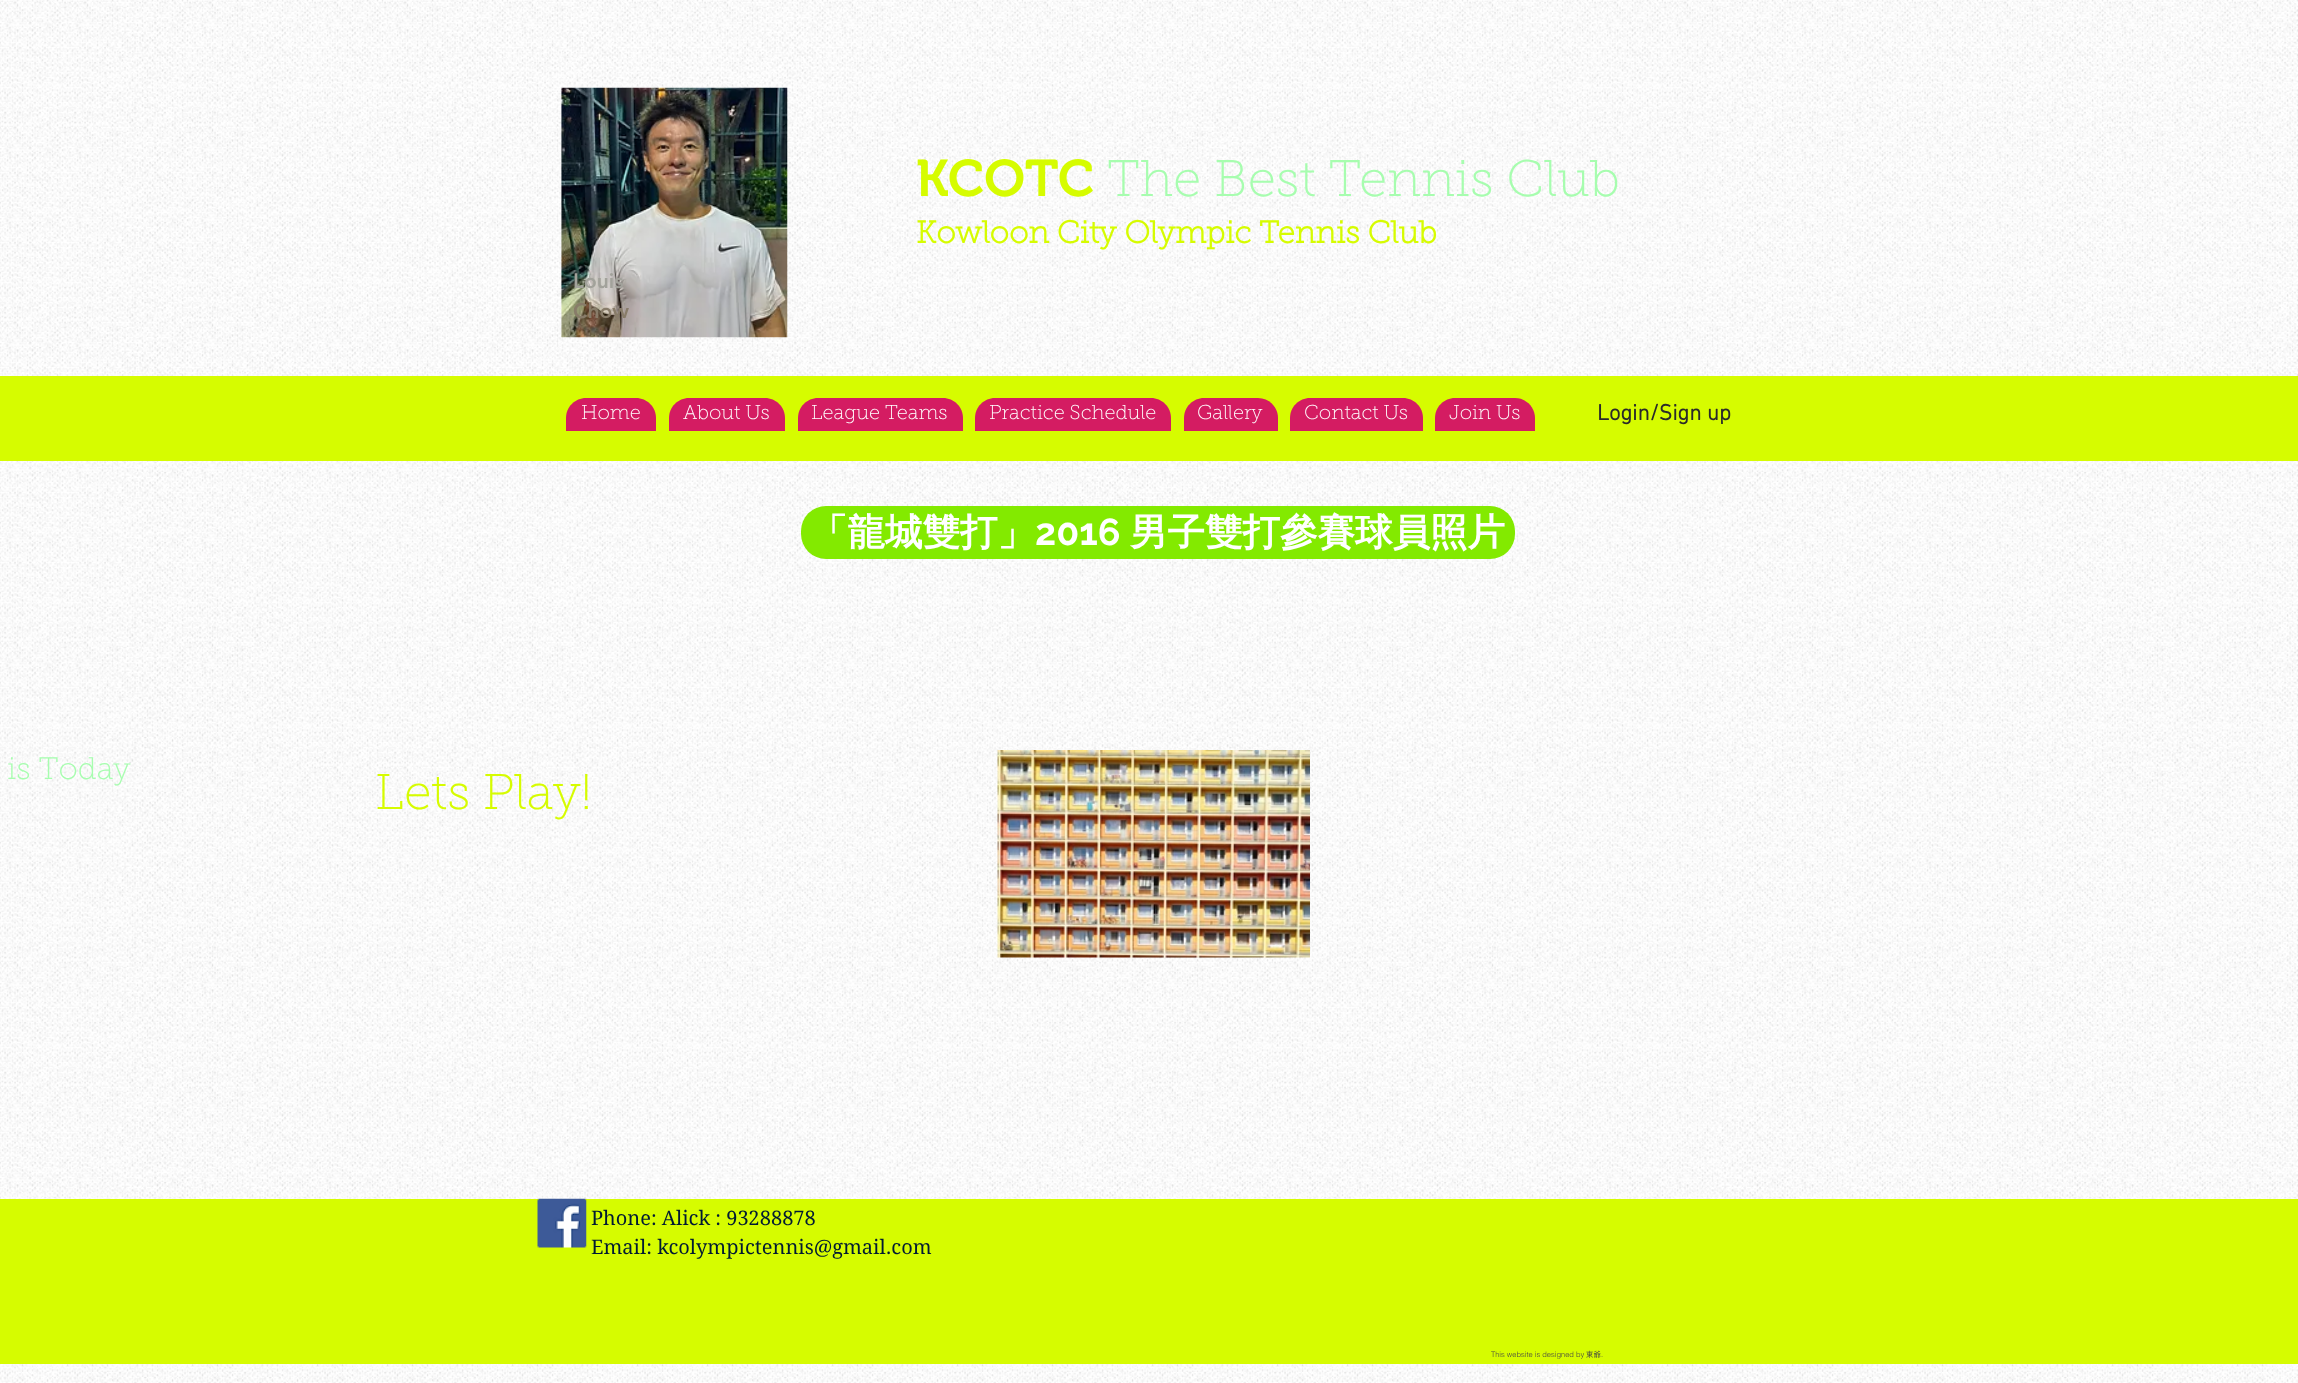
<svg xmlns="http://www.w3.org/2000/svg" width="2298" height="1383">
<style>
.a{font:600 51.25px 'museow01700';fill:#d6fc00}
.b{font:100 51.25px 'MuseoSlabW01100';fill:#a7fdaf}
.c{font:bold 31.25px 'MuseoSlabW01100';fill:#d6fc00}
.d{font:900 21px 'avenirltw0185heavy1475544';fill:#a2a29b}
.e{font:900 21px 'avenirltw0185heavy1475544';fill:#887c69}
.f{font:100 20px 'MuseoSlabW01100';fill:#fff}
.g{font:bold 22.5px 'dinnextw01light';fill:#2a2a2a}
.h{font:bold 37.5px WenQuanYi Zen Hei;fill:#fff}
.i{font:bold 37.5px Raleway;fill:#fff}
.j{font:100 31.25px 'MuseoSlabW01100';fill:#a7fdaf}
.k{font:100 50px 'MuseoSlabW01100';fill:#d6fc00}
.l{font:20px 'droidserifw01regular';fill:#001a33}
.m{font:300 7.5px helvetica;fill:#444}
.n{font:500 7.5px WenQuanYi Zen Hei;fill:#444}
</style>
<rect width="100%" height="100%" fill="#fff"/>
<image href="1.png" x="0" y="0" width="2298" height="1383"/>
<image href="2.png" x="561" y="87" width="227" height="251"/>
<path fill="#d6fc00" d="M0 376h2298v85H0z"/>
<path fill="#d41c62" d="M586 398h50c11 0 20 9 20 20v13h-90v-13c0-11 9-20 20-20z"/>
<path fill="#d41c62" d="M689 398h76c11 0 20 9 20 20v13h-116v-13c0-11 9-20 20-20z"/>
<path fill="#d41c62" d="M818 398h125c11 0 20 9 20 20v13h-165v-13c0-11 9-20 20-20z"/>
<path fill="#d41c62" d="M995 398h156c11 0 20 9 20 20v13h-196v-13c0-11 9-20 20-20z"/>
<path fill="#d41c62" d="M1204 398h54c11 0 20 9 20 20v13h-94v-13c0-11 9-20 20-20z"/>
<path fill="#d41c62" d="M1310 398h93c11 0 20 9 20 20v13h-133v-13c0-11 9-20 20-20z"/>
<path fill="#d41c62" d="M1455 398h60c11 0 20 9 20 20v13h-100v-13c0-11 9-20 20-20z"/>
<rect fill="#83ea00" x="801" y="506" width="714" height="53" rx="25"/>
<image href="3.png" x="997" y="750" width="313" height="208"/>
<path fill="#d6fc00" d="M0 1199h2298v165H0z"/>
<image href="4.png" x="537" y="1198" width="50" height="50"/>
<text class="a" x="916" y="196">KCOTC</text>
<text class="b" x="1107" y="196">The Best Tennis Club</text>
<text class="c" x="916" y="243">Kowloon City Olympic Tennis Club</text>
<text class="d" x="573" y="288">Louis</text>
<text class="e" x="573" y="318">Chow</text>
<text class="f" x="581" y="419">Home</text>
<text class="f" x="683" y="419">About Us</text>
<text class="f" x="811" y="419">League Teams</text>
<text class="f" x="989" y="419">Practice Schedule</text>
<text class="f" x="1197" y="419">Gallery</text>
<text class="f" x="1304" y="419">Contact Us</text>
<text class="f" x="1449" y="419">Join Us</text>
<text class="g" x="1597" y="420">Login/Sign up</text>
<text class="h" x="810" y="545">「龍城雙打」</text>
<text class="i" x="1035" y="545">2016</text>
<text class="h" x="1130" y="545">男子雙打參賽球員照片</text>
<text class="j" x="7" y="779">is Today</text>
<text class="k" x="375" y="809">Lets Play!</text>
<text class="l" x="591" y="1225">Phone: Alick : 93288878</text>
<text class="l" x="591" y="1254">Email: kcolympictennis@gmail.com</text>
<text class="m" x="1491" y="1357">This website is designed by</text>
<text class="n" x="1586" y="1357">東爺</text>
<text class="m" x="1601" y="1357">.</text>
</svg>
